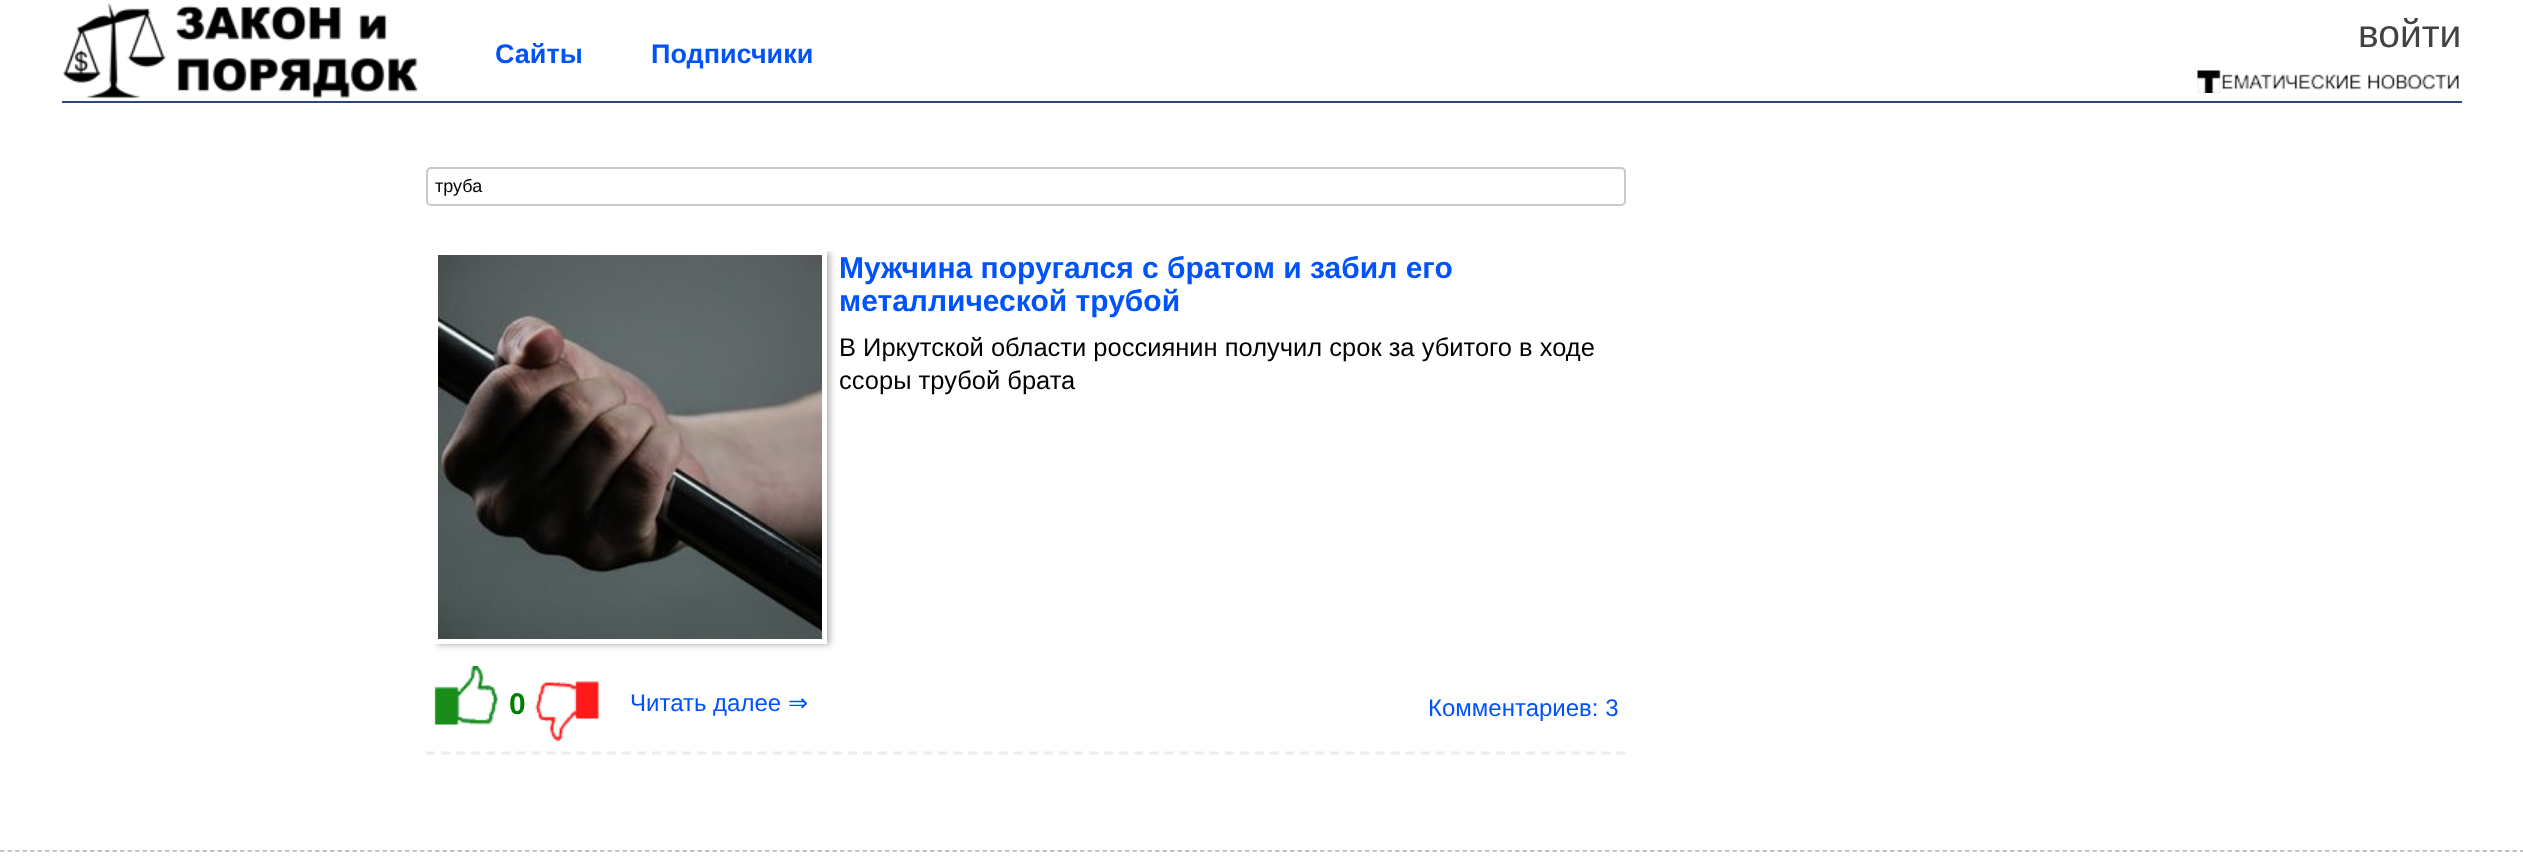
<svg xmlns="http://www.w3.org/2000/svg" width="2523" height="857">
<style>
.a{font:39px Liberation Sans;fill:#424242}
.b{font:bold 27px Liberation Sans;fill:#0053f9}
.c{font:18px Liberation Sans;fill:#000}
.d{font:bold 30px Liberation Sans;fill:#0053f9}
.e{font:25.5px Liberation Sans;fill:#000}
.f{font:bold 30px Liberation Sans;fill:#008000}
.g{font:24px Liberation Sans;fill:#0053f9}
.h{font:24px DejaVu Sans;fill:#0053f9}
</style>
<defs>
<clipPath id="clip1"><path d="M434 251h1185v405H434z"/></clipPath>
</defs>
<rect width="100%" height="100%" fill="#fff"/>
<path fill="#2e467a" d="M62 101h2400v2H62z"/>
<image href="1.png" x="62" y="3" width="356" height="95"/>
<image href="2.png" x="2197" y="70" width="262" height="23"/>
<rect fill="none" stroke="#c9c9c9" stroke-width="2" x="427" y="168" width="1198" height="37" rx="4"/>
<path fill="none" stroke="#ececec" stroke-width="3" stroke-dasharray="9 6.07" d="M426 753h1200"/>
<g clip-path="url(#clip1)">
<path fill="#b3b3b3" filter="blur(3px)" d="M437 252h393v393H437z"/>
</g>
<path fill="#fff" d="M434 251h393v393H434z"/>
<image href="3.png" x="438" y="255" width="384" height="384"/>
<image href="4.png" x="434" y="666" width="64" height="59"/>
<image href="5.png" x="535" y="681" width="64" height="60"/>
<path fill="none" stroke="#b0b0b0" stroke-width="1.5" stroke-dasharray="4.5 3" d="M0 851h2523"/>
<text class="a" x="2358" y="47">войти</text>
<text class="b" x="495" y="63">Сайты</text>
<text class="b" x="651" y="63">Подписчики</text>
<text class="c" x="435" y="192">труба</text>
<text class="d" x="839" y="278">Мужчина поругался с братом и забил его</text>
<text class="d" x="839" y="311">металлической трубой</text>
<text class="e" x="839" y="356">В Иркутской области россиянин получил срок за убитого в ходе</text>
<text class="e" x="839" y="389">ссоры трубой брата</text>
<text class="f" x="509" y="714">0</text>
<text class="g" x="630" y="711">Читать далее</text>
<text class="h" x="788" y="711">⇒</text>
<text class="g" x="1428" y="716">Комментариев: 3</text>
</svg>
